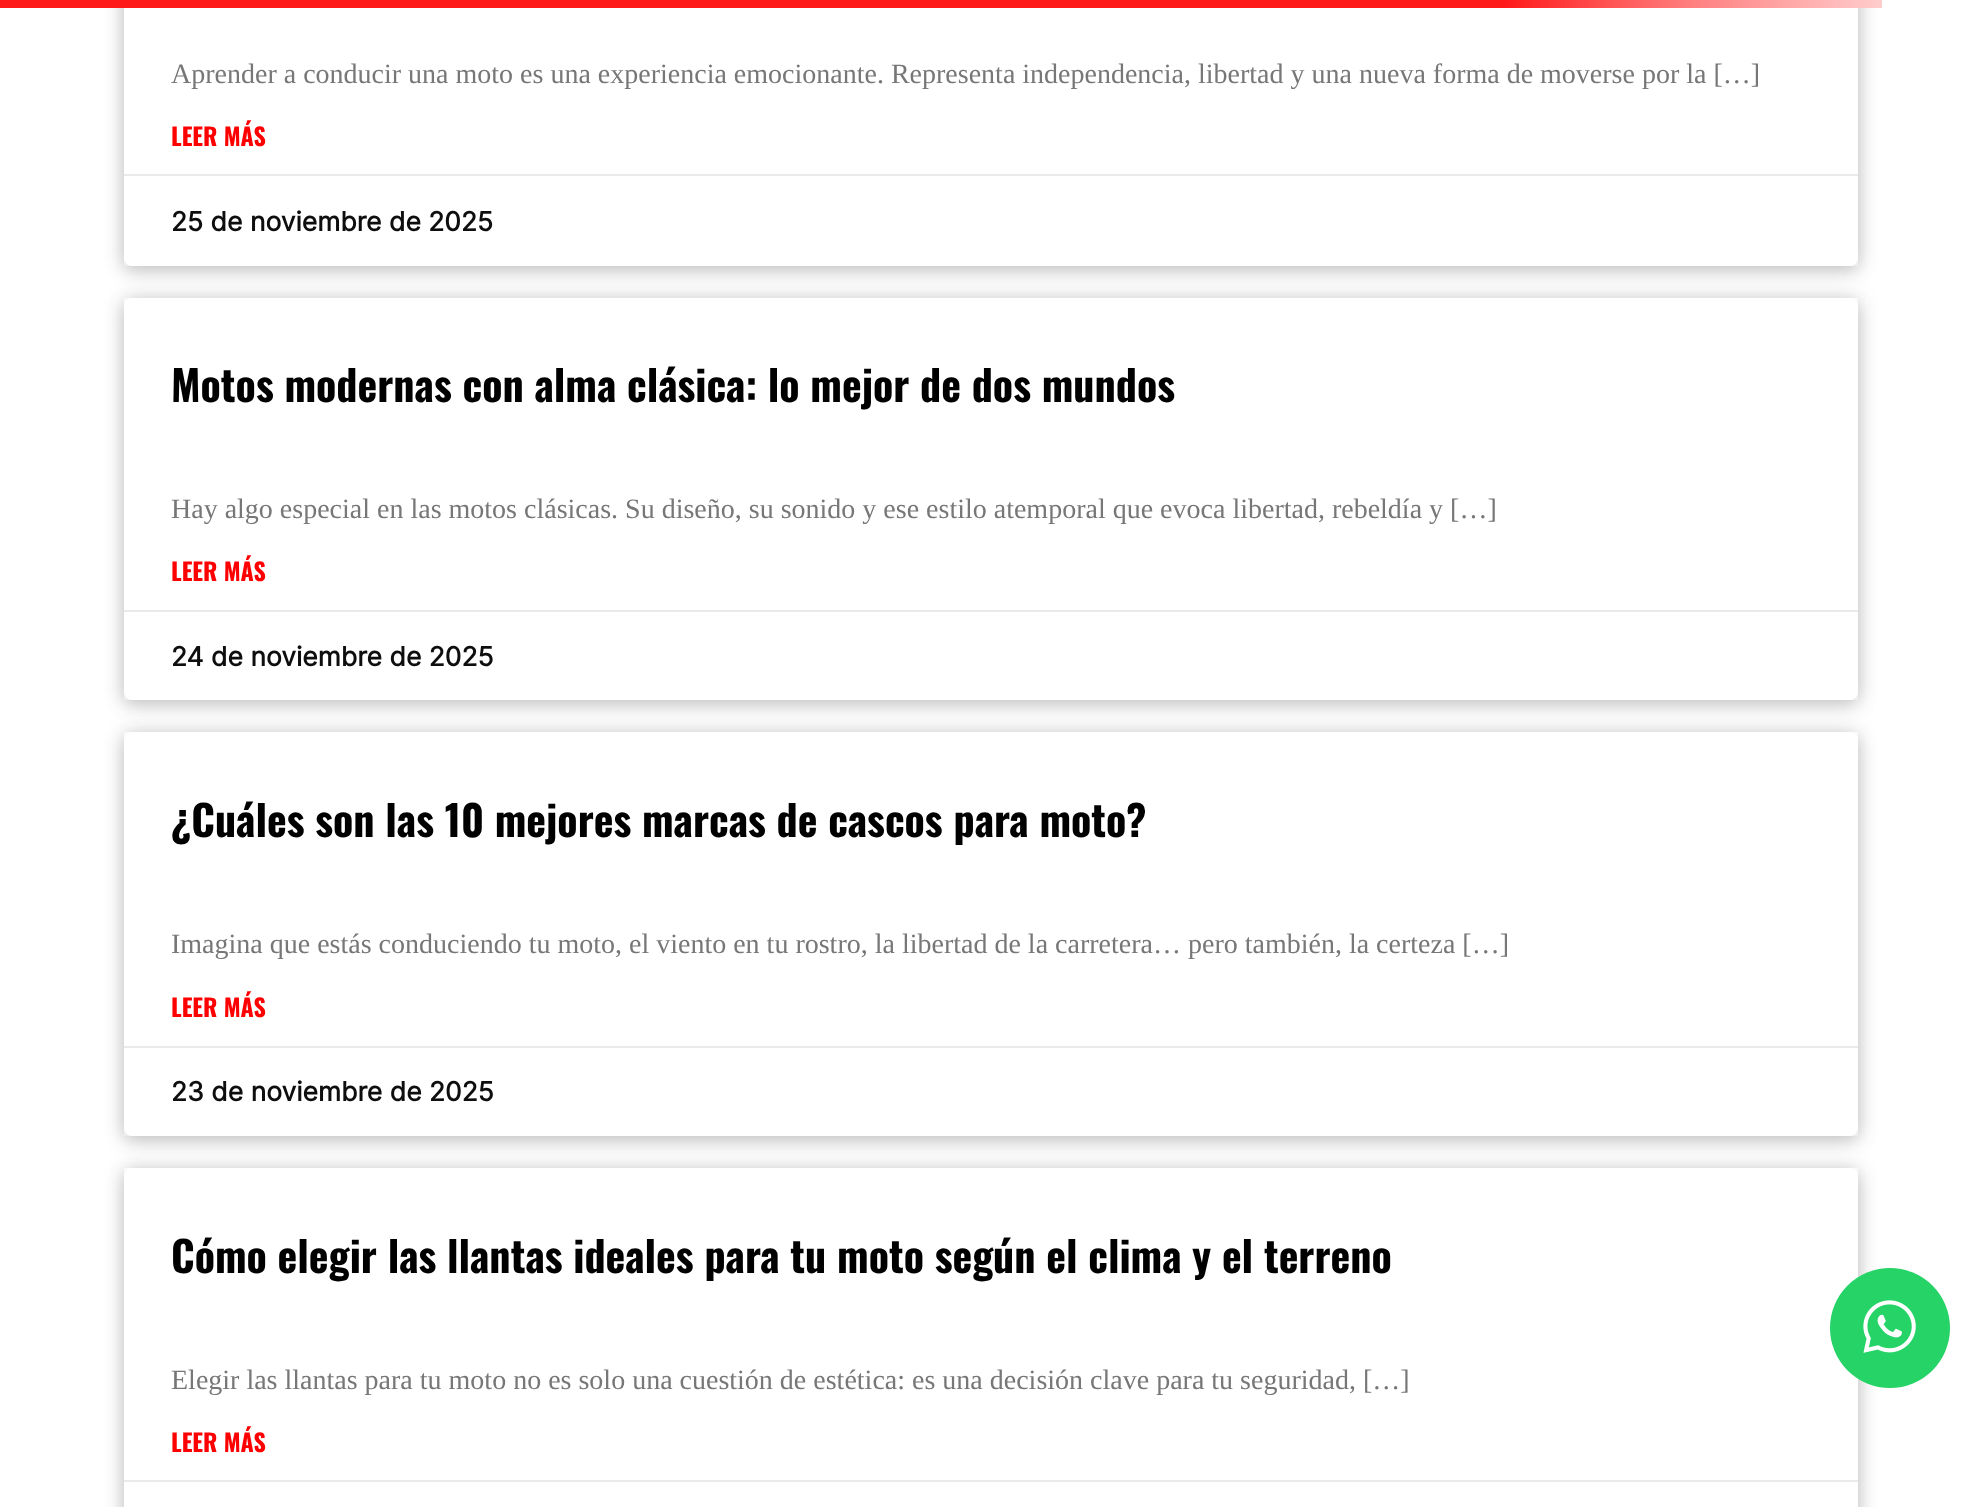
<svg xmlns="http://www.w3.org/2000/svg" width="1979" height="1507">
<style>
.a{font:28px Liberation Serif;fill:#777}
.b{font:bold 24px Oswald;fill:#f00}
.c{font:bold 26.5px Inter;fill:#0e0e0e}
.d{font:bold 42px Oswald;fill:#000}
</style>
<defs>
<clipPath id="clip1"><path d="M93 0h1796v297h-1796zm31-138h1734v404h-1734z" clip-rule="evenodd"/></clipPath>
<linearGradient id="g1" gradientUnits="userSpaceOnUse" x1="0" y1="4" x2="1881" y2="4"><stop offset="0.8" stop-color="#ff1a1a"/><stop offset="0.9" stop-color="#ff8080"/><stop offset="1" stop-color="#fcc"/></linearGradient>
<clipPath id="clip2"><path d="M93 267h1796v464h-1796zm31 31h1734v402h-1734z" clip-rule="evenodd"/></clipPath>
<clipPath id="clip3"><path d="M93 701h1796v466h-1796zm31 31h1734v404h-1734z" clip-rule="evenodd"/></clipPath>
<clipPath id="clip4"><path d="M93 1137h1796v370h-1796zm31 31h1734v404h-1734z" clip-rule="evenodd"/></clipPath>
</defs>
<rect width="100%" height="100%" fill="#fff"/>
<g clip-path="url(#clip1)">
<path fill="#00000026" filter="blur(10px)" d="M124 -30h1734v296H124z"/>
</g>
<rect fill="#3d3e4033" filter="blur(9px)" x="124" y="-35" width="1734" height="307" rx="8"/>
<rect fill="#fff" x="124" y="-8" width="1734" height="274" rx="8"/>
<path fill="url(#g1)" d="M0 0h1882v8H0z"/>
<path fill="#eaeaea" d="M124 174h1734v2H124z"/>
<g clip-path="url(#clip2)">
<path fill="#00000026" filter="blur(10px)" d="M124 298h1734v402H124z"/>
</g>
<rect fill="#3d3e4033" filter="blur(9px)" x="124" y="304" width="1734" height="402" rx="8"/>
<rect fill="#fff" x="124" y="298" width="1734" height="402" rx="8"/>
<path fill="#eaeaea" d="M124 610h1734v2H124z"/>
<g clip-path="url(#clip3)">
<path fill="#00000026" filter="blur(10px)" d="M124 732h1734v404H124z"/>
</g>
<rect fill="#3d3e4033" filter="blur(9px)" x="124" y="738" width="1734" height="404" rx="8"/>
<rect fill="#fff" x="124" y="732" width="1734" height="404" rx="8"/>
<path fill="#eaeaea" d="M124 1046h1734v2H124z"/>
<g clip-path="url(#clip4)">
<path fill="#00000026" filter="blur(10px)" d="M124 1168h1734v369H124z"/>
</g>
<rect fill="#3d3e4033" filter="blur(9px)" x="124" y="1174" width="1734" height="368" rx="8"/>
<rect fill="#fff" x="124" y="1168" width="1734" height="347" rx="8"/>
<path fill="#eaeaea" d="M124 1480h1734v2H124z"/>
<circle fill="#25d366" cx="1890" cy="1328" r="60"/>
<image href="1.png" x="1863" y="1300" width="53" height="53"/>
<text class="a" x="171" y="83">Aprender a conducir una moto es una experiencia emocionante. Representa independencia, libertad y una nueva forma de moverse por la […]</text>
<text class="b" x="171" y="146">LEER MÁS</text>
<text class="c" x="171" y="231">25 de noviembre de 2025</text>
<text class="d" x="171" y="402">Motos modernas con alma clásica: lo mejor de dos mundos</text>
<text class="b" x="171" y="581">LEER MÁS</text>
<text class="a" x="171" y="518">Hay algo especial en las motos clásicas. Su diseño, su sonido y ese estilo atemporal que evoca libertad, rebeldía y […]</text>
<text class="c" x="171" y="666">24 de noviembre de 2025</text>
<text class="d" x="171" y="837">¿Cuáles son las 10 mejores marcas de cascos para moto?</text>
<text class="b" x="171" y="1017">LEER MÁS</text>
<text class="a" x="171" y="953">Imagina que estás conduciendo tu moto, el viento en tu rostro, la libertad de la carretera… pero también, la certeza […]</text>
<text class="c" x="171" y="1101">23 de noviembre de 2025</text>
<text class="d" x="171" y="1273">Cómo elegir las llantas ideales para tu moto según el clima y el terreno</text>
<text class="b" x="171" y="1452">LEER MÁS</text>
<text class="a" x="171" y="1389">Elegir las llantas para tu moto no es solo una cuestión de estética: es una decisión clave para tu seguridad, […]</text>
</svg>
